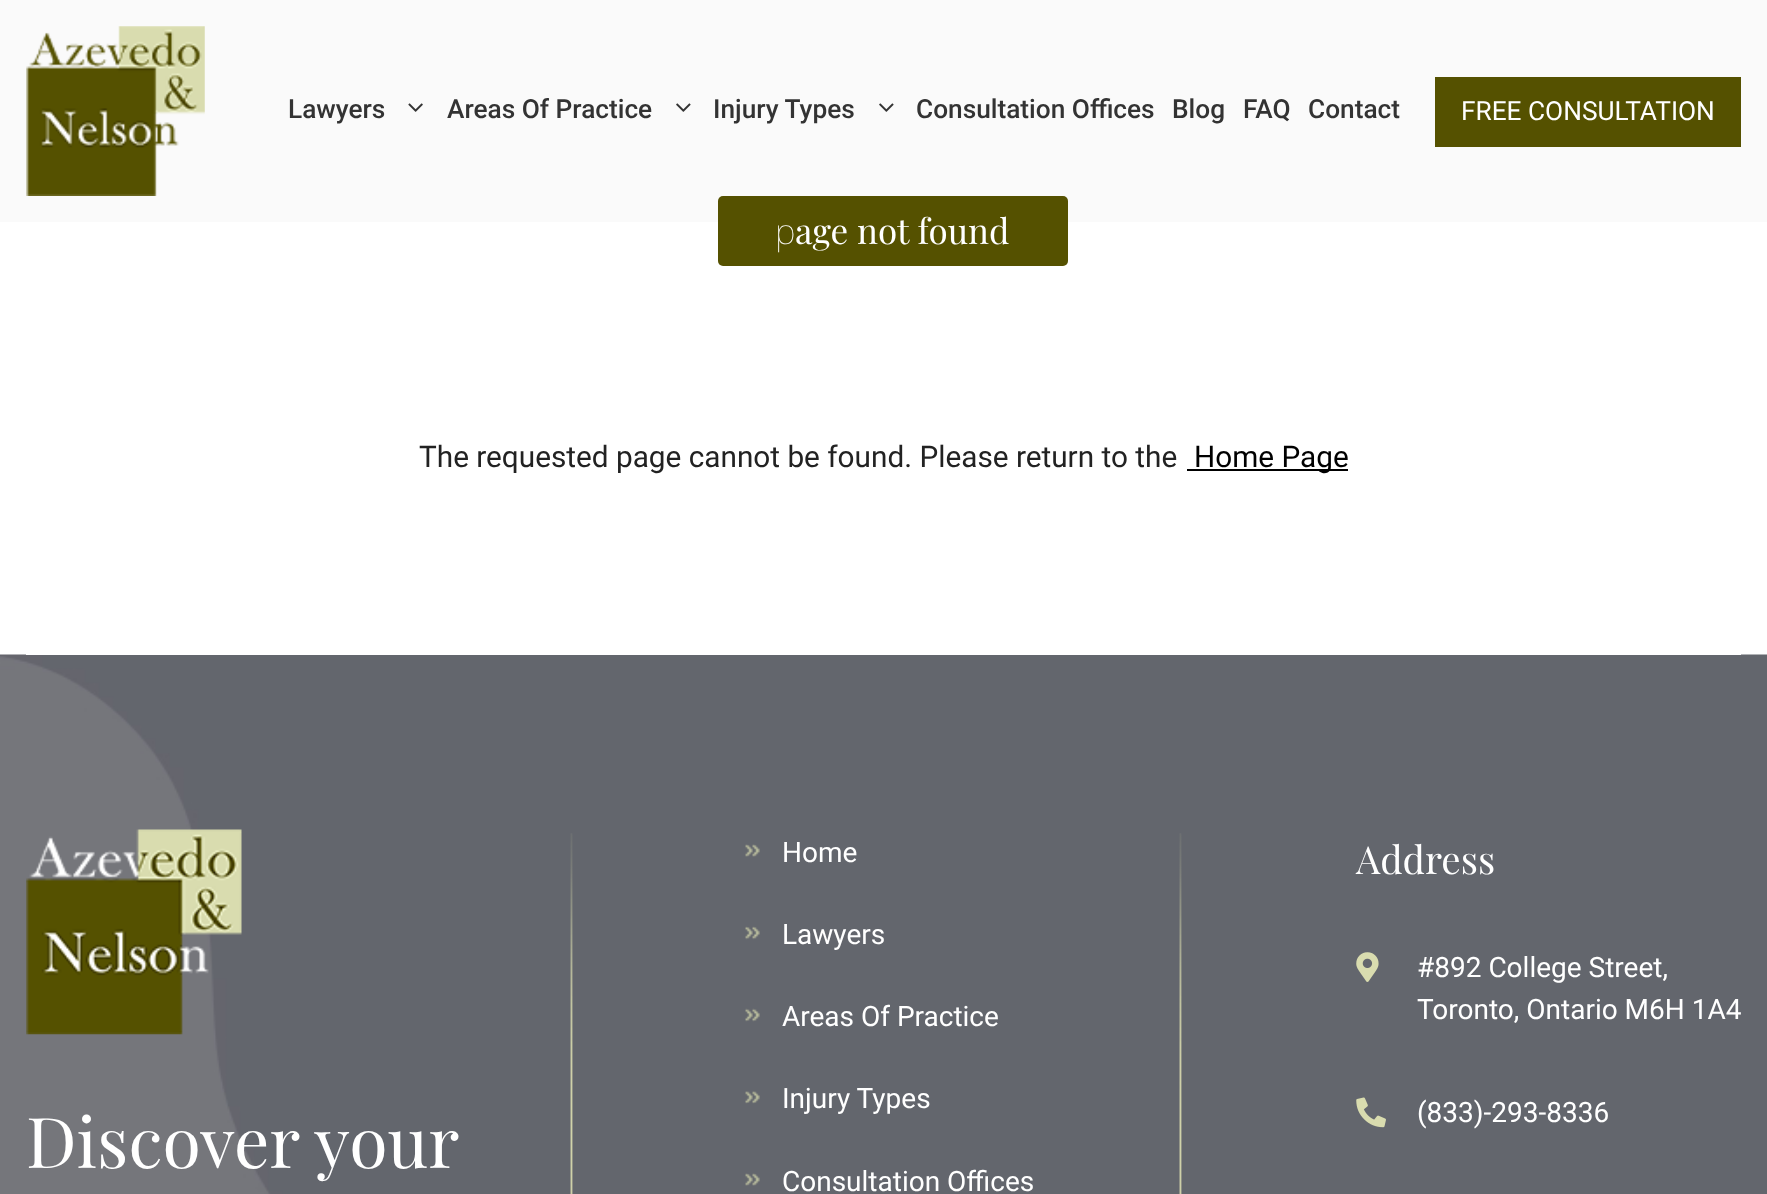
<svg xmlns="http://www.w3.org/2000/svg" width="1767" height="1194">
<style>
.a{font:500 26.25px Roboto;fill:#333}
.b{font:26.25px Roboto;fill:#fff}
.c{font:100 35px Noto Sans;fill:#fff}
.d{font:35px Playfair Display;fill:#fff}
.e{font:29.75px Roboto;fill:#222}
.f{font:29.75px Roboto;fill:#000}
.g{font:28px Roboto;fill:#fff}
.h{font:38.5px Playfair Display;fill:#fff}
.i{font:70px Playfair Display;fill:#fff}
</style>
<rect width="100%" height="100%" fill="#fff"/>
<path fill="#fafafa" d="M0 0h1767v222H0z"/>
<image href="1.png" x="26" y="26" width="179" height="170"/>
<image href="2.png" x="408" y="103" width="15" height="9"/>
<image href="3.png" x="676" y="103" width="15" height="9"/>
<image href="3.png" x="879" y="103" width="15" height="9"/>
<path fill="#555100" d="M1435 77h306v70H1435z"/>
<image href="4.png" x="0" y="654" width="1767" height="540"/>
<path fill="#fff" d="M26 654h1715v1H26z"/>
<rect fill="#555100" x="718" y="196" width="350" height="70" rx="5"/>
<path fill="#000" d="M1187 469h161v2H1187z"/>
<image href="5.png" x="745" y="844" width="15" height="13"/>
<image href="6.png" x="745" y="926" width="15" height="14"/>
<image href="7.png" x="745" y="1008" width="15" height="14"/>
<image href="8.png" x="745" y="1091" width="15" height="13"/>
<image href="5.png" x="745" y="1173" width="15" height="13"/>
<image href="9.png" x="1179" y="833" width="3" height="361"/>
<image href="10.png" x="1356" y="952" width="23" height="30"/>
<image href="11.png" x="1356" y="1097" width="30" height="31"/>
<image href="12.png" x="26" y="829" width="216" height="206"/>
<image href="9.png" x="570" y="833" width="3" height="361"/>
<text class="a" x="288" y="118">Lawyers</text>
<text class="a" x="447" y="118">Areas Of Practice</text>
<text class="a" x="713" y="118">Injury Types</text>
<text class="a" x="916" y="118">Consultation Offices</text>
<text class="a" x="1172" y="118">Blog</text>
<text class="a" x="1243" y="118">FAQ</text>
<text class="a" x="1308" y="118">Contact</text>
<text class="b" x="1461" y="120">FREE CONSULTATION</text>
<text class="c" x="775" y="244">p</text>
<text class="d" x="795" y="244">age not found</text>
<text class="e" x="419" y="467">The requested page cannot be found. Please return to the</text>
<text class="f" x="1194" y="467">Home Page</text>
<text class="g" x="782" y="862">Home</text>
<text class="g" x="782" y="944">Lawyers</text>
<text class="g" x="782" y="1026">Areas Of Practice</text>
<text class="g" x="782" y="1108">Injury Types</text>
<text class="g" x="782" y="1191">Consultation Offices</text>
<text class="h" x="1356" y="874">Address</text>
<text class="g" x="1417" y="977">#892 College Street,</text>
<text class="g" x="1417" y="1019">Toronto, Ontario M6H 1A4</text>
<text class="g" x="1417" y="1122">(833)-293-8336</text>
<text class="i" x="26" y="1168">Discover your</text>
</svg>
